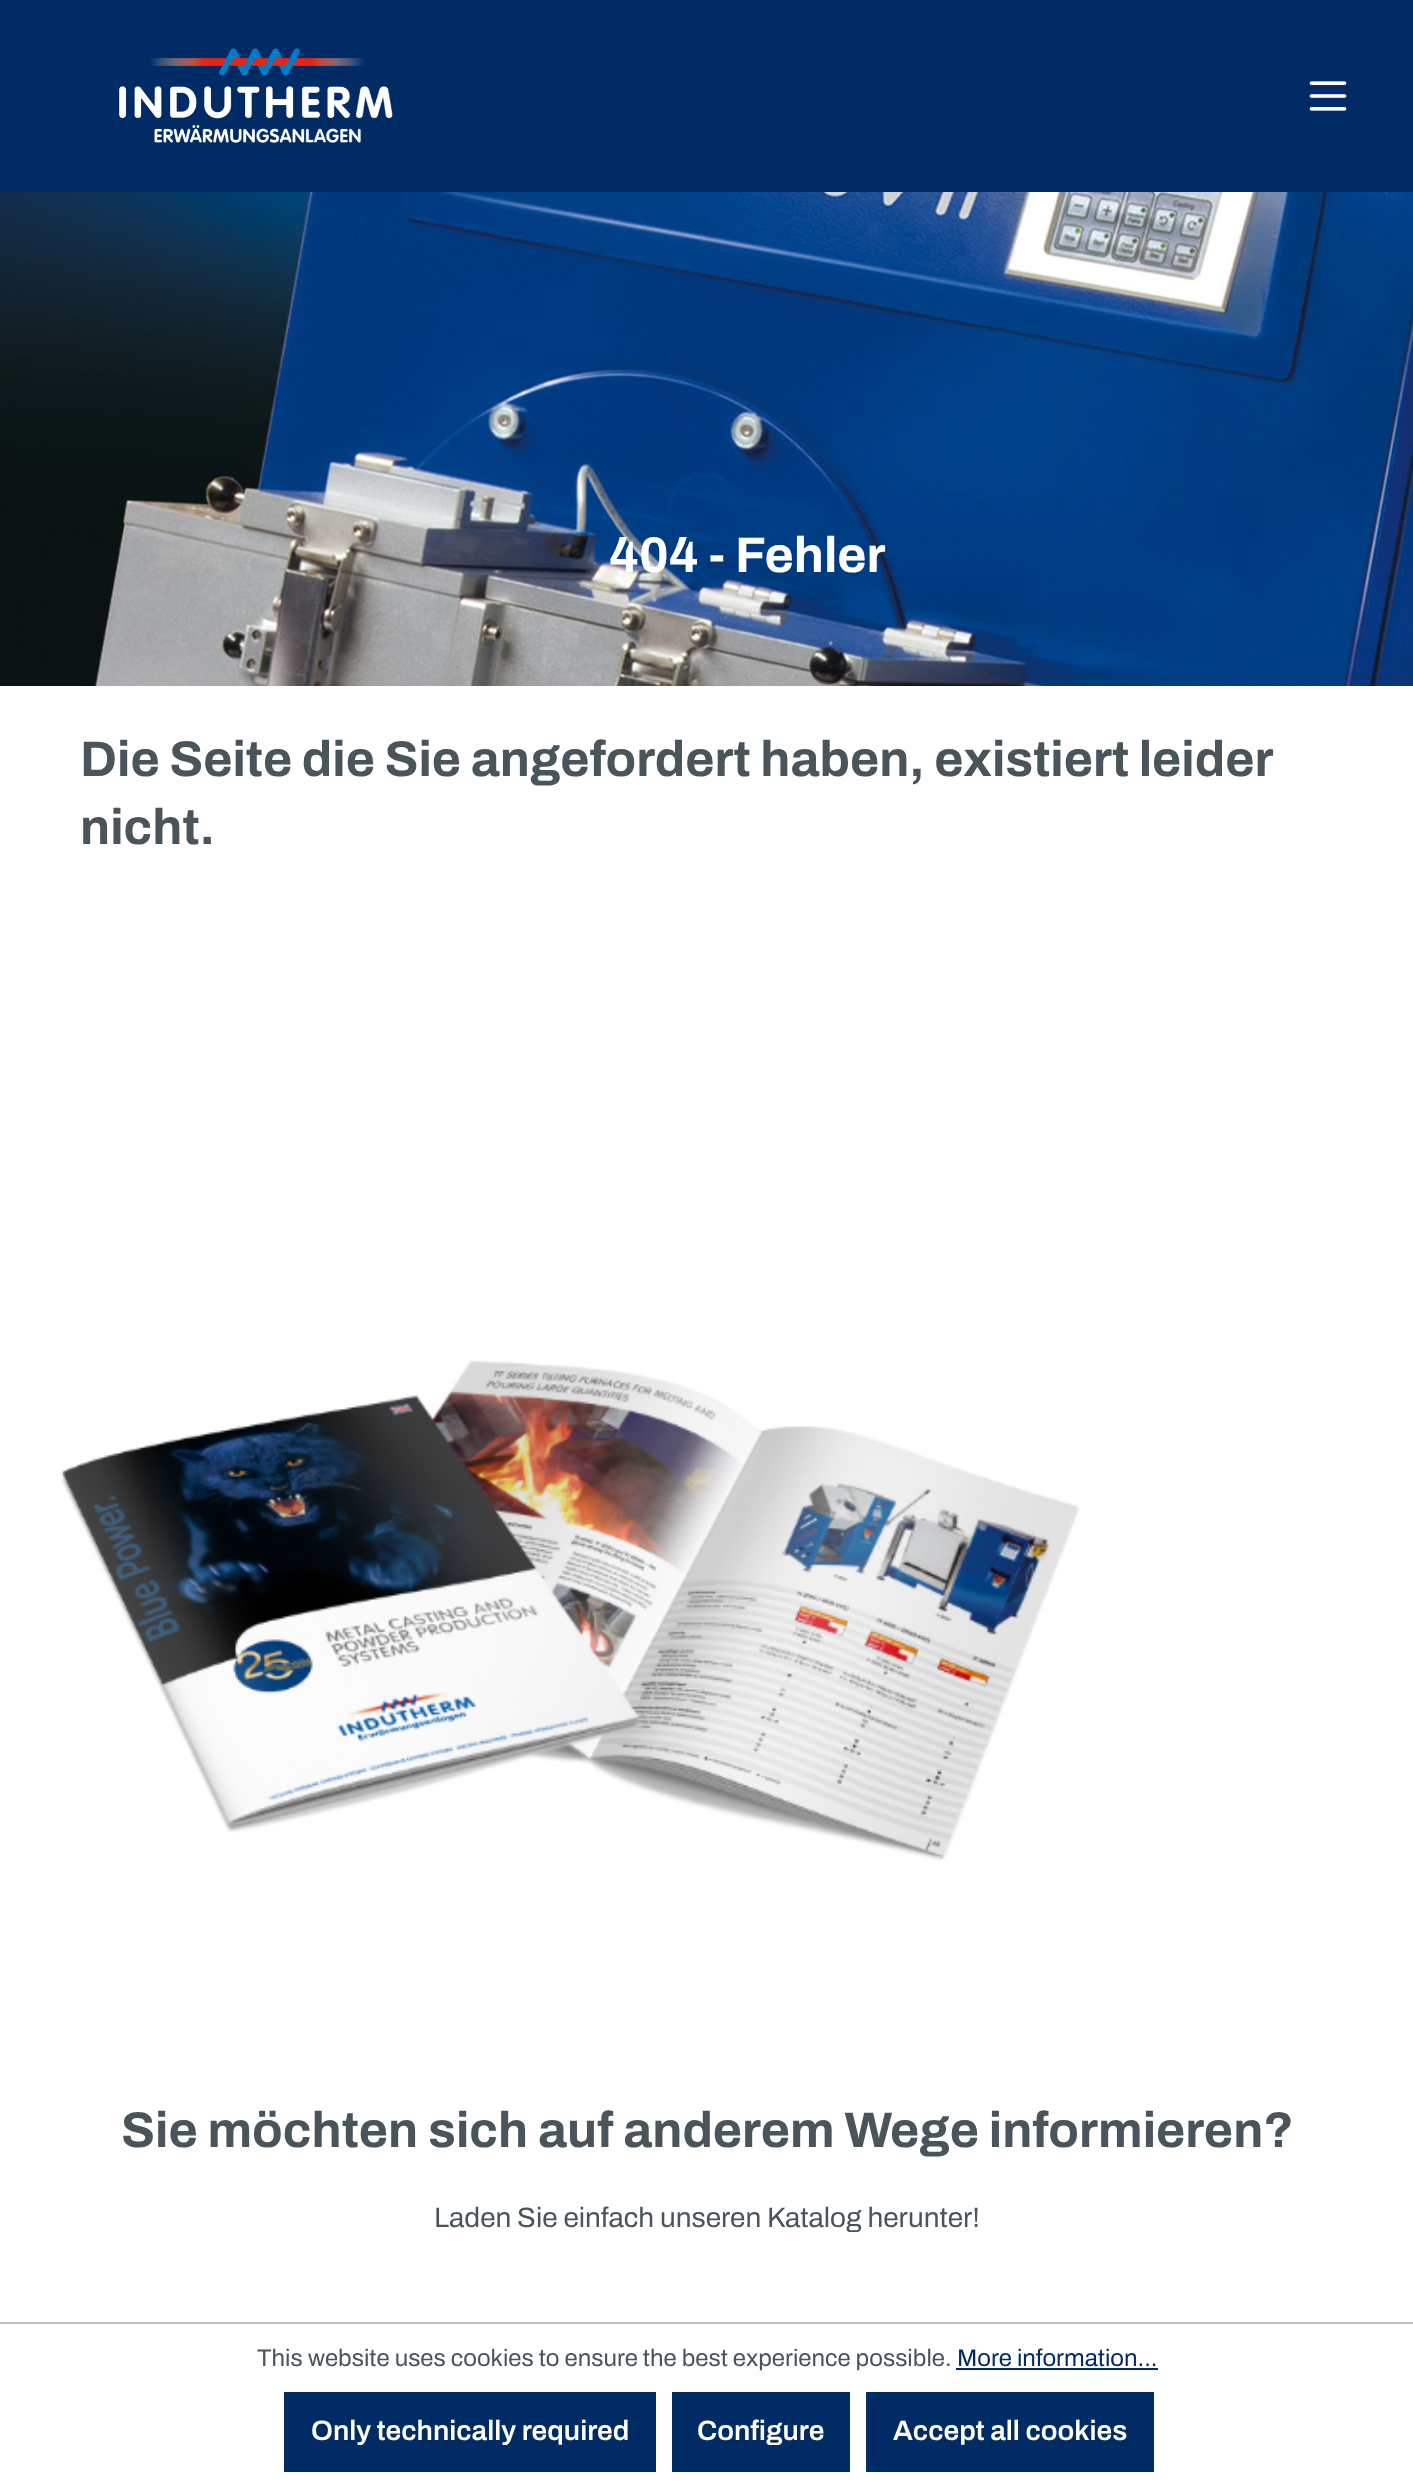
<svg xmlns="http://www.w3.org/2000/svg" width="1413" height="2488">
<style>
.a{font:bold 50.1px Archivo;fill:#fff}
.b{font:bold 50.1px Archivo;fill:#4a545b}
.c{font:28px Archivo;fill:#4a545b}
.d{font:24px Archivo;fill:#4a545b}
.e{font:24px Archivo;fill:#012b64}
.f{font:600 28px Archivo;fill:#fff}
</style>
<rect width="100%" height="100%" fill="#fff"/>
<path fill="#012b64" d="M0 0h1413v192H0z"/>
<image href="1.png" x="119" y="48" width="274" height="95"/>
<image href="2.png" x="1309" y="81" width="38" height="30"/>
<image href="3.png" x="0" y="192" width="1413" height="494"/>
<image href="4.png" x="60" y="1359" width="1020" height="502"/>
<path fill="#bcc1c7" d="M0 2322h1413v2H0z"/>
<path fill="#012b64" d="M956 2368h202v2H956z"/>
<path fill="#012b64" d="M284 2392h372v80H284z"/>
<path fill="#012b64" d="M672 2392h178v80H672z"/>
<path fill="#012b64" d="M866 2392h288v80H866z"/>
<text class="a" x="609" y="572">404 - Fehler</text>
<text class="b" x="80" y="776" word-spacing="-0.25">Die Seite die Sie angefordert haben, existiert leider</text>
<text class="b" x="80" y="844">nicht.</text>
<text class="b" x="121" y="2147">Sie möchten sich auf anderem Wege informieren?</text>
<text class="c" x="434" y="2227">Laden Sie einfach unseren Katalog herunter!</text>
<text class="d" x="257" y="2366">This website uses cookies to ensure the best experience possible.</text>
<text class="e" x="957" y="2366">More information...</text>
<text class="f" x="311" y="2440">Only technically required</text>
<text class="f" x="697" y="2440">Configure</text>
<text class="f" x="893" y="2440">Accept all cookies</text>
</svg>
